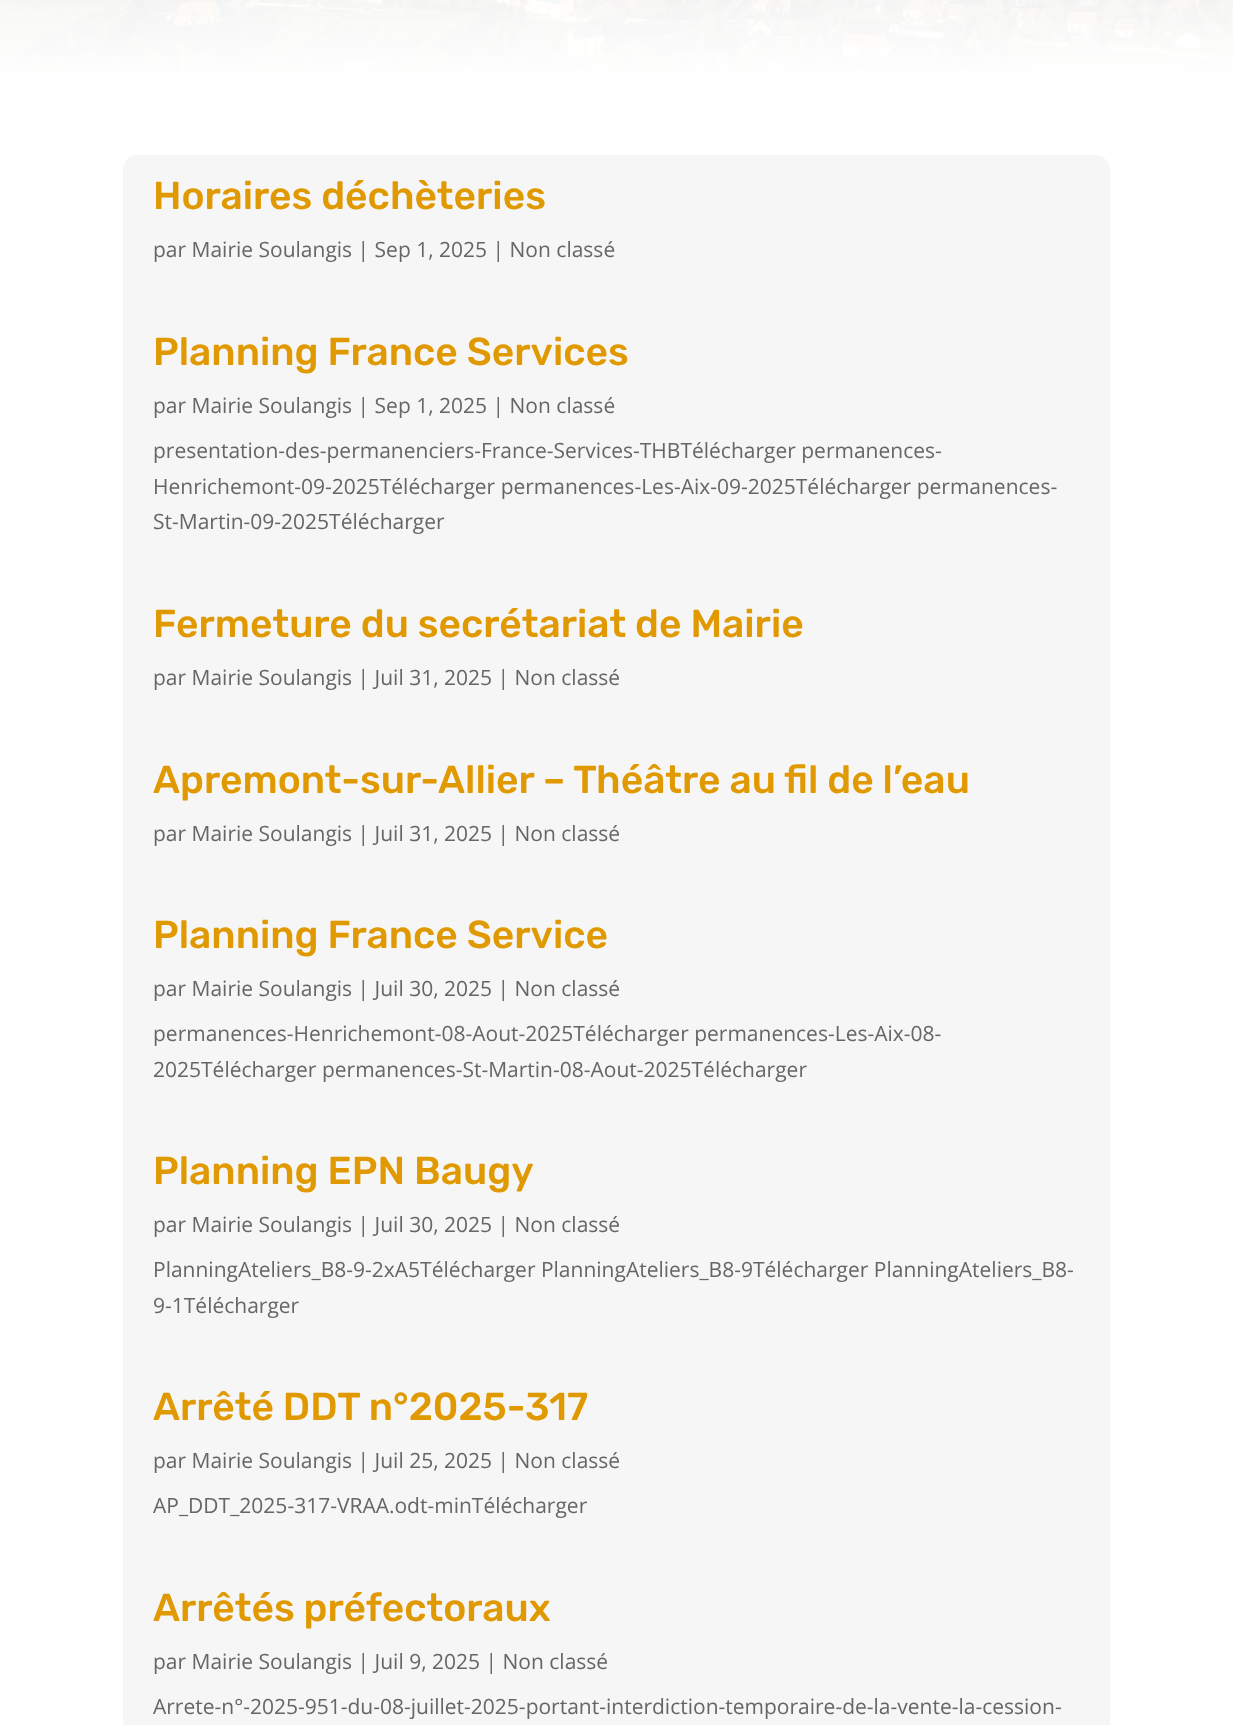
<svg xmlns="http://www.w3.org/2000/svg" width="1233" height="1725">
<style>
.a{font:500 39px Rubik;fill:#e09900}
.b{font:21px Open Sans;fill:#666}
</style>
<rect width="100%" height="100%" fill="#fff"/>
<image href="1.png" x="0" y="0" width="1233" height="79"/>
<rect fill="#f6f6f6" x="123" y="155" width="987" height="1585" rx="15"/>
<text class="a" x="153" y="209">Horaires déchèteries</text>
<text class="b" x="153" y="257">par Mairie Soulangis | Sep 1, 2025 | Non classé</text>
<text class="a" x="153" y="365">Planning France Services</text>
<text class="b" x="153" y="413">par Mairie Soulangis | Sep 1, 2025 | Non classé</text>
<text class="b" x="153" y="458">presentation-des-permanenciers-France-Services-THBTélécharger permanences-</text>
<text class="b" x="153" y="494">Henrichemont-09-2025Télécharger permanences-Les-Aix-09-2025Télécharger permanences-</text>
<text class="b" x="153" y="529">St-Martin-09-2025Télécharger</text>
<text class="a" x="153" y="637">Fermeture du secrétariat de Mairie</text>
<text class="b" x="153" y="685">par Mairie Soulangis | Juil 31, 2025 | Non classé</text>
<text class="a" x="153" y="793">Apremont-sur-Allier – Théâtre au fil de l’eau</text>
<text class="b" x="153" y="841">par Mairie Soulangis | Juil 31, 2025 | Non classé</text>
<text class="a" x="153" y="948">Planning France Service</text>
<text class="b" x="153" y="996">par Mairie Soulangis | Juil 30, 2025 | Non classé</text>
<text class="b" x="153" y="1041">permanences-Henrichemont-08-Aout-2025Télécharger permanences-Les-Aix-08-</text>
<text class="b" x="153" y="1077">2025Télécharger permanences-St-Martin-08-Aout-2025Télécharger</text>
<text class="a" x="153" y="1184">Planning EPN Baugy</text>
<text class="b" x="153" y="1232">par Mairie Soulangis | Juil 30, 2025 | Non classé</text>
<text class="b" x="153" y="1277">PlanningAteliers_B8-9-2xA5Télécharger PlanningAteliers_B8-9Télécharger PlanningAteliers_B8-</text>
<text class="b" x="153" y="1313">9-1Télécharger</text>
<text class="a" x="153" y="1420">Arrêté DDT n°2025-317</text>
<text class="b" x="153" y="1468">par Mairie Soulangis | Juil 25, 2025 | Non classé</text>
<text class="b" x="153" y="1513">AP_DDT_2025-317-VRAA.odt-minTélécharger</text>
<text class="a" x="153" y="1621">Arrêtés préfectoraux</text>
<text class="b" x="153" y="1669">par Mairie Soulangis | Juil 9, 2025 | Non classé</text>
<text class="b" x="153" y="1714">Arrete-n°-2025-951-du-08-juillet-2025-portant-interdiction-temporaire-de-la-vente-la-cession-</text>
</svg>
